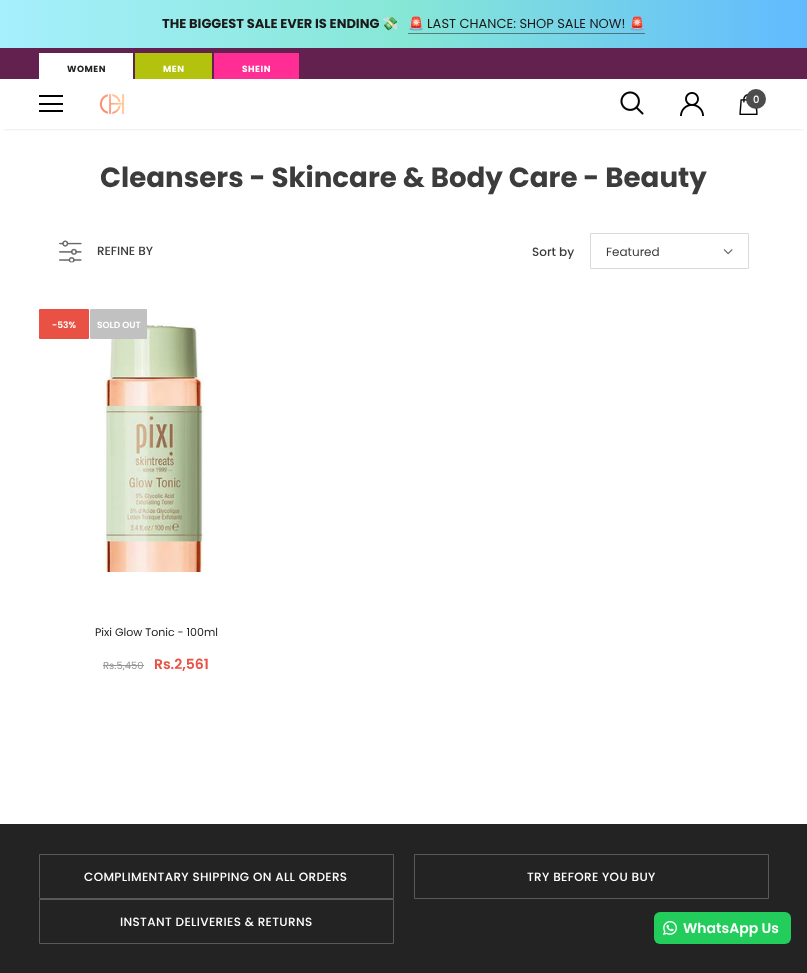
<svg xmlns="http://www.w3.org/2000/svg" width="807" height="973">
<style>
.a{font:bold 13px Poppins;fill:#1a1a1a}
.b{font:13px Noto Color Emoji;fill:#1a1a1a}
.c{font:13px Poppins;fill:#1a1a1a}
.d{font:bold 9px Poppins;letter-spacing:0.5px;fill:#232323}
.e{font:bold 9px Poppins;letter-spacing:0.5px;fill:#fff}
.f{font:500 10px Poppins;fill:#fff}
.g{font:bold 27.7px Poppins;fill:#3c3c3c}
.h{font:500 12px Poppins;fill:#3c3c3c}
.i{font:12px Poppins;fill:#3c3c3c}
.j{font:600 9px Poppins;fill:#fff}
.k{font:11px Poppins;fill:#232323}
.l{font:10px Poppins;fill:#969696}
.m{font:600 14px Poppins;fill:#e95144}
.n{font:500 12px Poppins;letter-spacing:0.35px;fill:#fff}
.o{font:600 14px Poppins;fill:#fff}
</style>
<defs>
<linearGradient id="g1" gradientUnits="userSpaceOnUse" x1="0" y1="24" x2="807" y2="24"><stop offset="0" stop-color="#a6effd"/><stop offset="0.5" stop-color="#86e7d6"/><stop offset="1" stop-color="#61baff"/></linearGradient>
<linearGradient id="g2" gradientUnits="userSpaceOnUse" x1="0" y1="24" x2="807" y2="24"><stop offset="0" stop-color="#60858c"/><stop offset="0.5" stop-color="#508178"/><stop offset="1" stop-color="#3e6a8d"/></linearGradient>
</defs>
<rect width="100%" height="100%" fill="#fff"/>
<path fill="url(#g1)" d="M0 0h807v48H0z"/>
<path fill="url(#g2)" d="M408 33h237v1H408z"/>
<path fill="#632150" d="M0 48h807v31H0z"/>
<path fill="#fff" d="M39 53h94v26H39z"/>
<path fill="#b3c30d" d="M135 53h77v26H135z"/>
<path fill="#ff2d94" d="M214 53h85v26H214z"/>
<path fill="#0000001f" filter="blur(1.5px)" d="M3 85h801v44H3z"/>
<path fill="#fff" d="M1 83h805v46H1z"/>
<path fill="#000" d="M39 95h24v2H39z"/>
<path fill="#000" d="M39 103h24v2H39z"/>
<path fill="#000" d="M39 110h24v2H39z"/>
<image href="1.png" x="99" y="94" width="26" height="20"/>
<image href="2.png" x="620" y="91" width="24" height="24"/>
<image href="3.png" x="680" y="92" width="24" height="24"/>
<image href="4.png" x="739" y="94" width="19" height="21"/>
<circle fill="#4d4c4c" cx="756" cy="99" r="10"/>
<image href="5.png" x="59" y="240" width="23" height="23"/>
<path fill="none" stroke="#dadada" d="M590.5 233.5h158v35H590.5z"/>
<image href="6.png" x="723" y="249" width="10" height="6"/>
<rect fill="#e95144" x="39" y="309" width="50" height="30" rx="1"/>
<image href="7.png" x="102" y="323" width="102" height="249"/>
<rect fill="#c1c1c1" x="90" y="309" width="57" height="30" rx="1"/>
<path fill="#969696" d="M103 665h41v1H103z"/>
<path fill="#232323" d="M0 824h807v149H0z"/>
<path fill="none" stroke="#595959" d="M39.5 854.5h354v44H39.5z"/>
<path fill="none" stroke="#595959" d="M414.5 854.5h354v44H414.5z"/>
<path fill="none" stroke="#595959" d="M39.5 899.5h354v44H39.5z"/>
<rect fill="#22cd5b" x="654" y="912" width="137" height="32" rx="6"/>
<image href="8.png" x="663" y="921" width="14" height="14"/>
<text class="a" x="162" y="28">THE BIGGEST SALE EVER IS ENDING</text>
<text class="b" x="382" y="28">💸</text>
<text class="b" x="408" y="28">🚨</text>
<text class="c" x="427" y="28">LAST CHANCE: SHOP SALE NOW!</text>
<text class="b" x="629" y="28">🚨</text>
<text class="d" x="67" y="72">WOMEN</text>
<text class="e" x="163" y="72">MEN</text>
<text class="e" x="242" y="72">SHEIN</text>
<text class="f" x="753" y="103">0</text>
<text class="g" x="100" y="187">Cleansers - Skincare &amp; Body Care - Beauty</text>
<text class="h" x="97" y="255">REFINE BY</text>
<text class="h" x="532" y="256">Sort by</text>
<text class="i" x="606" y="256">Featured</text>
<text class="j" x="52" y="328">-53%</text>
<text class="j" x="97" y="328">SOLD OUT</text>
<text class="k" x="95" y="636">Pixi Glow Tonic - 100ml</text>
<text class="l" x="103" y="669">Rs.5,450</text>
<text class="m" x="154" y="669">Rs.2,561</text>
<text class="n" x="84" y="881">COMPLIMENTARY SHIPPING ON ALL ORDERS</text>
<text class="n" x="527" y="881">TRY BEFORE YOU BUY</text>
<text class="n" x="120" y="926">INSTANT DELIVERIES &amp; RETURNS</text>
<text class="o" x="683" y="933">WhatsApp Us</text>
</svg>
